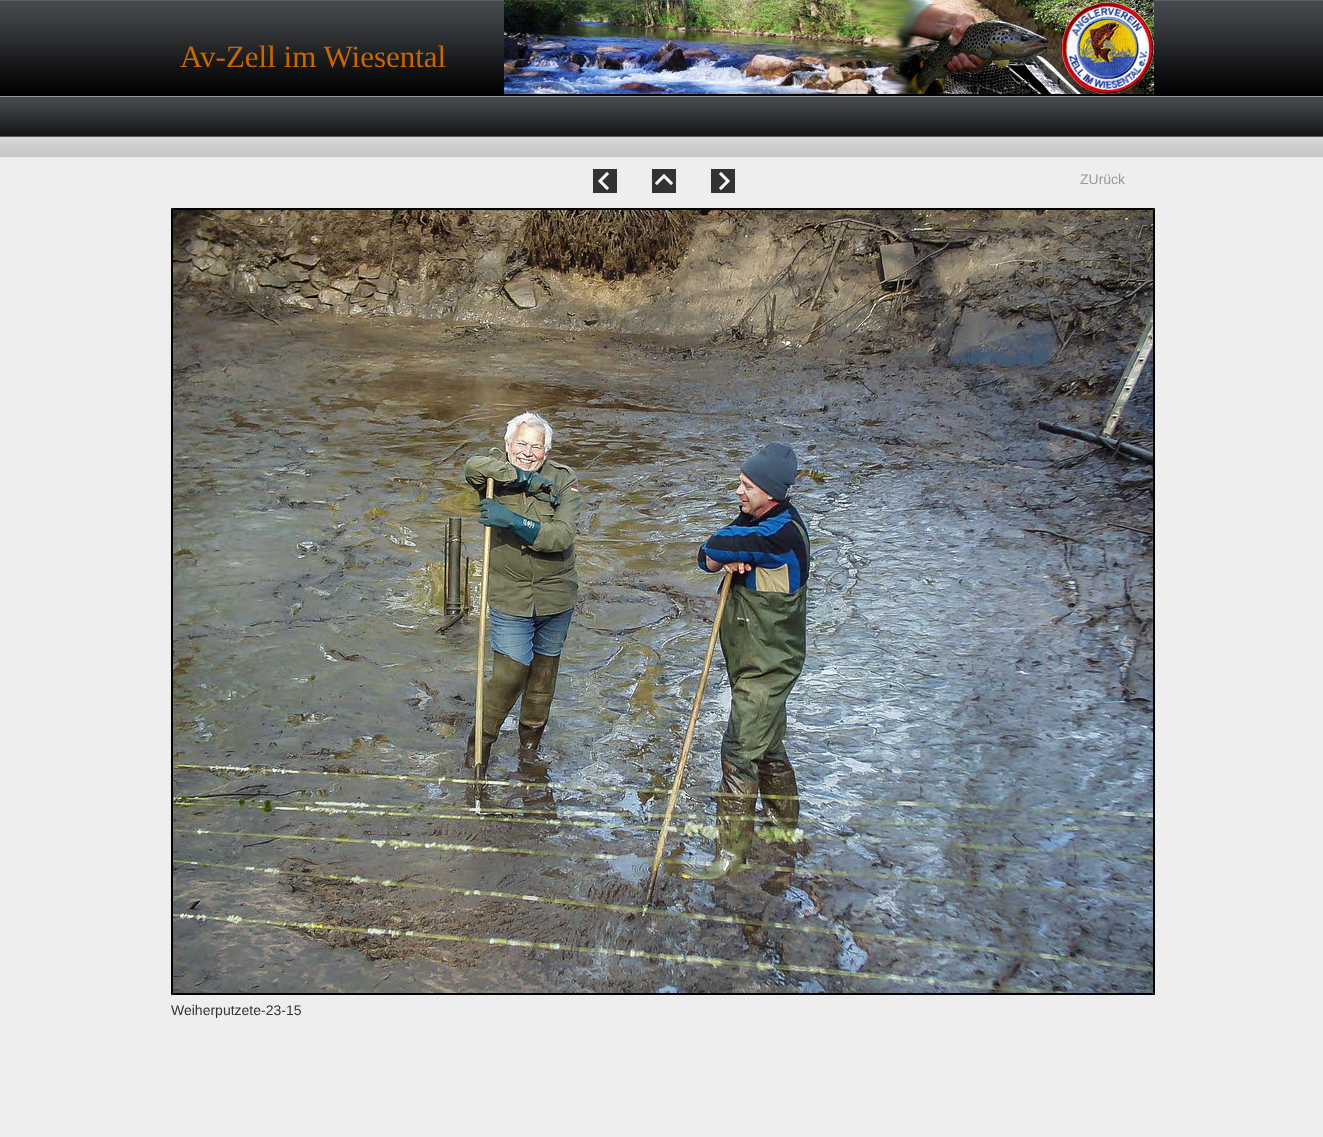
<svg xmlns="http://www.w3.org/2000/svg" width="1323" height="1137">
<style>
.a{font:31px Liberation Serif;fill:#c60}
.b{font:14px Liberation Sans;fill:#999}
.c{font:14px Liberation Sans;fill:#333}
</style>
<rect width="100%" height="100%" fill="#eee"/>
<image href="1.png" x="0" y="0" width="1323" height="157"/>
<image href="2.png" x="504" y="0" width="650" height="94"/>
<image href="3.png" x="593" y="169" width="24" height="24"/>
<image href="4.png" x="652" y="169" width="24" height="24"/>
<image href="5.png" x="711" y="169" width="24" height="24"/>
<path fill="none" stroke="#000" d="M171.5 208.5h983v786H171.5z"/>
<path fill="none" stroke="#000" d="M172.5 209.5h981v784H172.5z"/>
<image href="6.png" x="173" y="210" width="980" height="783"/>
<text class="a" x="180" y="67">Av-Zell im Wiesental</text>
<text class="b" x="1080" y="184">ZUrück</text>
<text class="c" x="171" y="1015">Weiherputzete-23-15</text>
</svg>
